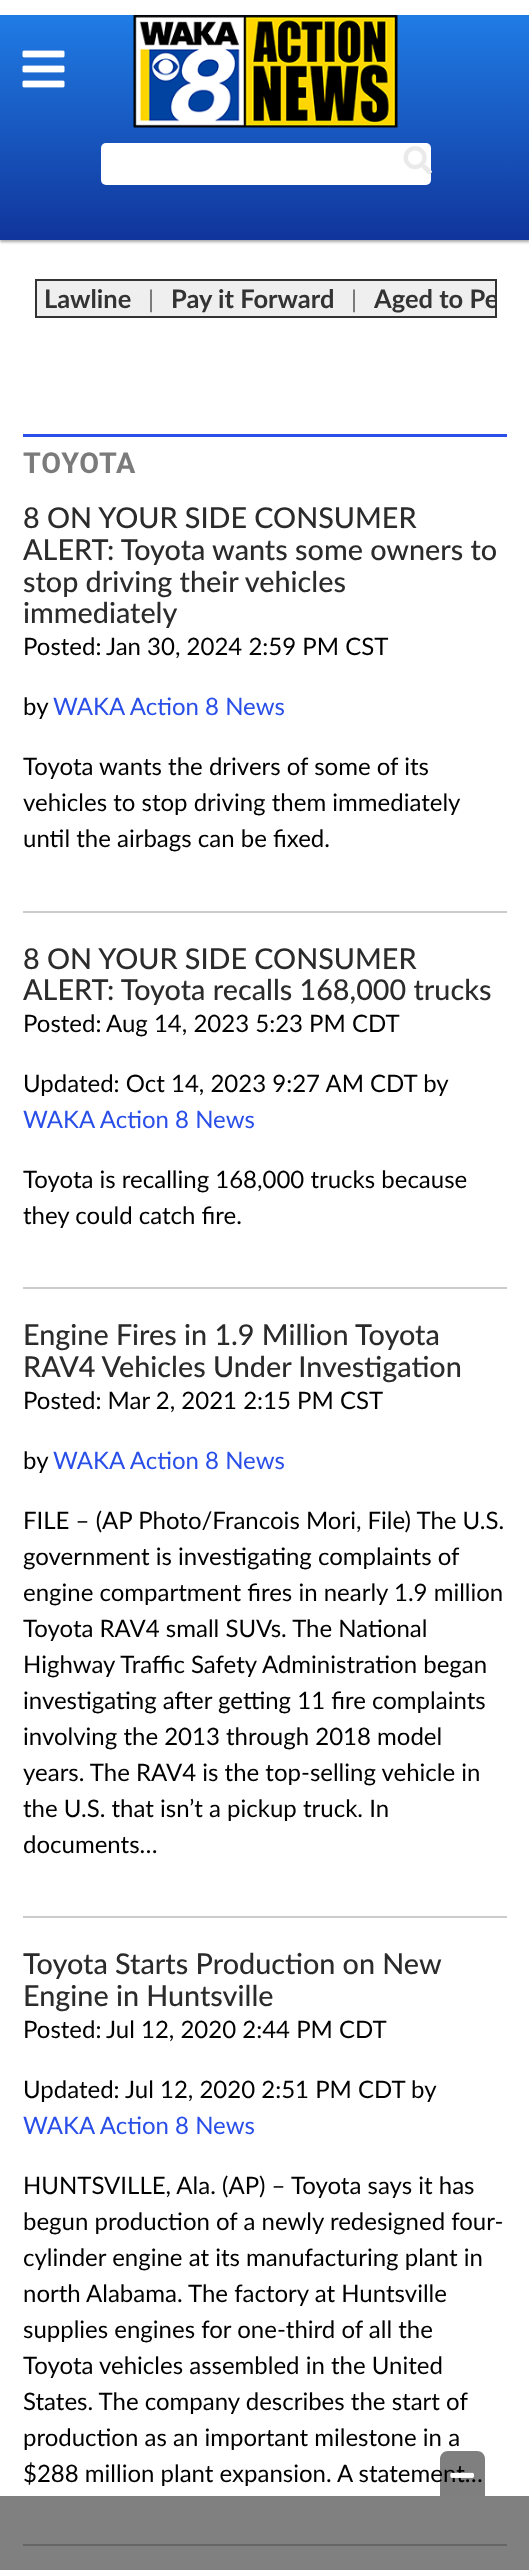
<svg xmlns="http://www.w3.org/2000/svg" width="529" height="2570">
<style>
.a{font:bold 25.5px Lato;fill:#333}
.b{font:24px Lato;fill:#666}
.c{font:bold 28.75px Roboto;letter-spacing:0.75px;fill:#7b7b7b}
.d{font:500 28.75px Lato;fill:#2b2b2b}
.e{font:24px Lato;fill:#000}
.f{font:24px Lato;fill:#2a4fe8}
</style>
<defs>
<linearGradient id="g1" gradientUnits="userSpaceOnUse" x1="265" y1="15" x2="265" y2="240"><stop offset="0" stop-color="#207ce5"/><stop offset="1" stop-color="#10359b"/></linearGradient>
<clipPath id="clip1"><path d="M36 281h459v36H36z"/></clipPath>
</defs>
<rect width="100%" height="100%" fill="#fff"/>
<path fill="#808080" d="M0 2496h529v74H0z"/>
<path fill="#00000057" filter="blur(1.5px)" d="M0 17h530v225H0z"/>
<path fill="url(#g1)" d="M0 15h529v225H0z"/>
<image href="1.png" x="22" y="50" width="43" height="38"/>
<image href="2.png" x="133" y="15" width="265" height="113"/>
<rect fill="#fff" x="101" y="143" width="330" height="42" rx="5"/>
<image href="3.png" x="403" y="146" width="29" height="29"/>
<path fill="#efefef" stroke="#333" stroke-width="2" d="M36 280h460v37H36z"/>
<path fill="#2a4fe8" d="M23 434h484v3H23z"/>
<path fill="#ccc" d="M23 911h484v2H23z"/>
<path fill="#ccc" d="M23 1287h484v2H23z"/>
<path fill="#ccc" d="M23 1916h484v2H23z"/>
<path fill="#666" d="M23 2544h484v2H23z"/>
<text class="a" x="44" y="308">Lawline</text>
<text class="b" x="148" y="308">|</text>
<text class="a" x="171" y="308">Pay it Forward</text>
<text class="b" x="351" y="308">|</text>
<g clip-path="url(#clip1)">
<text class="a" x="374" y="308">Aged to Pe</text>
</g>
<text class="c" x="23" y="473">TOYOTA</text>
<text class="d" x="23" y="528">8 ON YOUR SIDE CONSUMER</text>
<text class="d" x="23" y="560">ALERT: Toyota wants some owners to</text>
<text class="d" x="23" y="592">stop driving their vehicles</text>
<text class="d" x="23" y="623">immediately</text>
<text class="e" x="23" y="655">Posted:</text>
<text class="e" x="106" y="655">Jan 30, 2024 2:59 PM CST</text>
<text class="e" x="23" y="715">by</text>
<text class="f" x="53" y="715">WAKA Action 8 News</text>
<text class="e" x="23" y="775">Toyota wants the drivers of some of its</text>
<text class="e" x="23" y="811">vehicles to stop driving them immediately</text>
<text class="e" x="23" y="847">until the airbags can be fixed.</text>
<text class="d" x="23" y="969">8 ON YOUR SIDE CONSUMER</text>
<text class="d" x="23" y="1000">ALERT: Toyota recalls 168,000 trucks</text>
<text class="e" x="23" y="1032">Posted:</text>
<text class="e" x="106" y="1032">Aug 14, 2023 5:23 PM CDT</text>
<text class="e" x="23" y="1092">Updated: Oct 14, 2023 9:27 AM CDT by</text>
<text class="f" x="23" y="1128">WAKA Action 8 News</text>
<text class="e" x="23" y="1188">Toyota is recalling 168,000 trucks because</text>
<text class="e" x="23" y="1224">they could catch fire.</text>
<text class="d" x="23" y="1345">Engine Fires in 1.9 Million Toyota</text>
<text class="d" x="23" y="1377">RAV4 Vehicles Under Investigation</text>
<text class="e" x="23" y="1409">Posted: Mar 2, 2021 2:15 PM CST</text>
<text class="e" x="23" y="1469">by</text>
<text class="f" x="53" y="1469">WAKA Action 8 News</text>
<text class="e" x="23" y="1529">FILE – (AP Photo/Francois Mori, File) The U.S.</text>
<text class="e" x="23" y="1565">government is investigating complaints of</text>
<text class="e" x="23" y="1601">engine compartment fires in nearly 1.9 million</text>
<text class="e" x="23" y="1637">Toyota RAV4 small SUVs. The National</text>
<text class="e" x="23" y="1673">Highway Traffic Safety Administration began</text>
<text class="e" x="23" y="1709">investigating after getting 11 fire complaints</text>
<text class="e" x="23" y="1745">involving the 2013 through 2018 model</text>
<text class="e" x="23" y="1781">years. The RAV4 is the top-selling vehicle in</text>
<text class="e" x="23" y="1817">the U.S. that isn’t a pickup truck. In</text>
<text class="e" x="23" y="1853">documents…</text>
<text class="d" x="23" y="1974">Toyota Starts Production on New</text>
<text class="d" x="23" y="2006">Engine in Huntsville</text>
<text class="e" x="23" y="2038">Posted:</text>
<text class="e" x="106" y="2038">Jul 12, 2020 2:44 PM CDT</text>
<text class="e" x="23" y="2098">Updated:</text>
<text class="e" x="125" y="2098">Jul 12, 2020 2:51 PM CDT by</text>
<text class="f" x="23" y="2134">WAKA Action 8 News</text>
<text class="e" x="23" y="2194">HUNTSVILLE, Ala. (AP) – Toyota says it has</text>
<text class="e" x="23" y="2230">begun production of a newly redesigned four-</text>
<text class="e" x="23" y="2266">cylinder engine at its manufacturing plant in</text>
<text class="e" x="23" y="2302">north Alabama. The factory at Huntsville</text>
<text class="e" x="23" y="2338">supplies engines for one-third of all the</text>
<text class="e" x="23" y="2374">Toyota vehicles assembled in the United</text>
<text class="e" x="23" y="2410">States. The company describes the start of</text>
<text class="e" x="23" y="2446">production as an important milestone in a</text>
<text class="e" x="23" y="2482">$288 million plant expansion. A statement…</text>
<path fill="#00000080" d="M448 2451h29c4.5 0 8 3.5 8 8v37h-45v-37c0-4.5 3.5-8 8-8z"/>
<image href="4.png" x="450" y="2472" width="24" height="6"/>
</svg>
